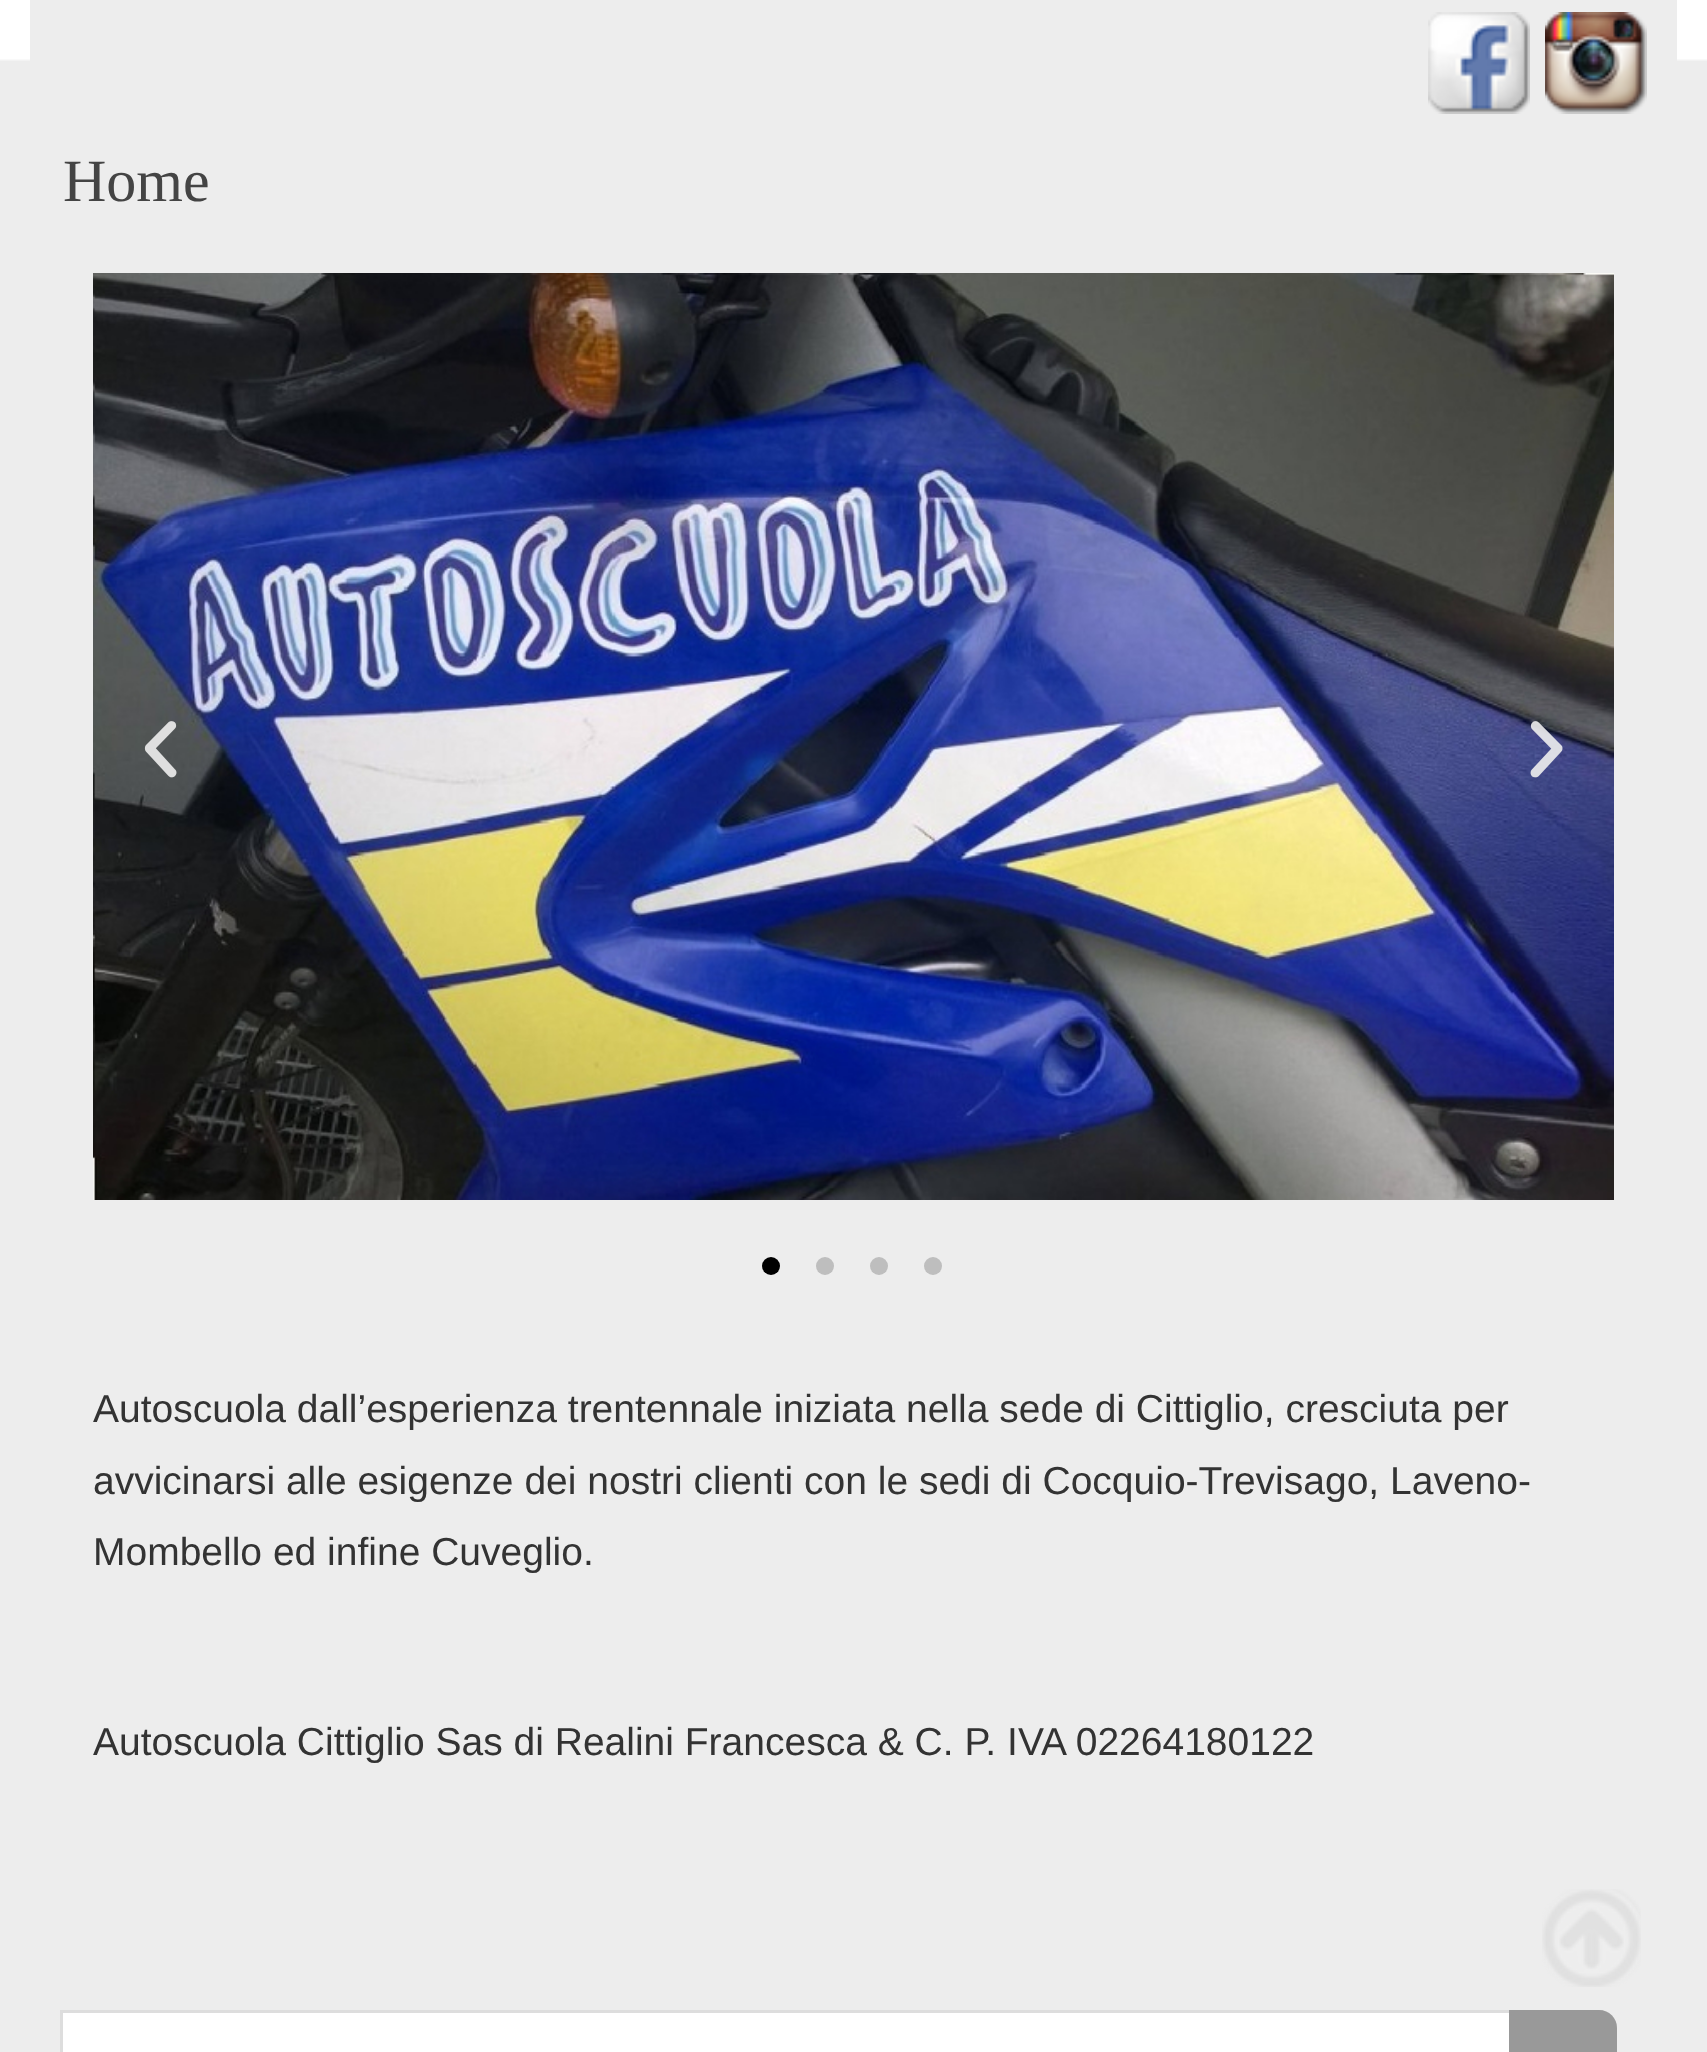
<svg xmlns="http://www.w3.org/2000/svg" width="1707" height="2052">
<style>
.a{font:60px Liberation Serif;fill:#444}
.b{font:39px Liberation Sans;fill:#333}
</style>
<rect width="100%" height="100%" fill="#fff"/>
<image href="1.png" x="0" y="59" width="1707" height="1993"/>
<path fill="#ededed" d="M30 0h1647v61H30z"/>
<image href="2.png" x="1428" y="12" width="102" height="102"/>
<image href="3.png" x="1545" y="12" width="102" height="102"/>
<image href="4.png" x="93" y="273" width="1521" height="927"/>
<image href="5.png" x="144" y="721" width="33" height="57"/>
<image href="6.png" x="1530" y="721" width="33" height="57"/>
<circle fill="#000" cx="771" cy="1266" r="9"/>
<circle fill="#bebebe" cx="825" cy="1266" r="9"/>
<circle fill="#bebebe" cx="879" cy="1266" r="9"/>
<circle fill="#bebebe" cx="933" cy="1266" r="9"/>
<path fill="#fff" stroke="#ddd" stroke-width="3" d="M61.5 2011.5h1537.5c9 0 16.5 7.5 16.5 16.5v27c0 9-7.5 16.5-16.5 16.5h-1537.5z"/>
<path fill="#999" d="M1509 2010h90c10 0 18 8 18 18v24c0 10-8 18-18 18h-90z"/>
<image href="7.png" x="1542" y="1889" width="99" height="98"/>
<text class="a" x="63" y="201">Home</text>
<text class="b" x="93" y="1422">Autoscuola dall’esperienza trentennale iniziata nella sede di Cittiglio, cresciuta per</text>
<text class="b" x="93" y="1494">avvicinarsi alle esigenze dei nostri clienti con le sedi di Cocquio-Trevisago, Laveno-</text>
<text class="b" x="93" y="1565">Mombello ed infine Cuveglio.</text>
<text class="b" x="93" y="1755">Autoscuola Cittiglio Sas di Realini Francesca &amp; C. P. IVA 02264180122</text>
</svg>
